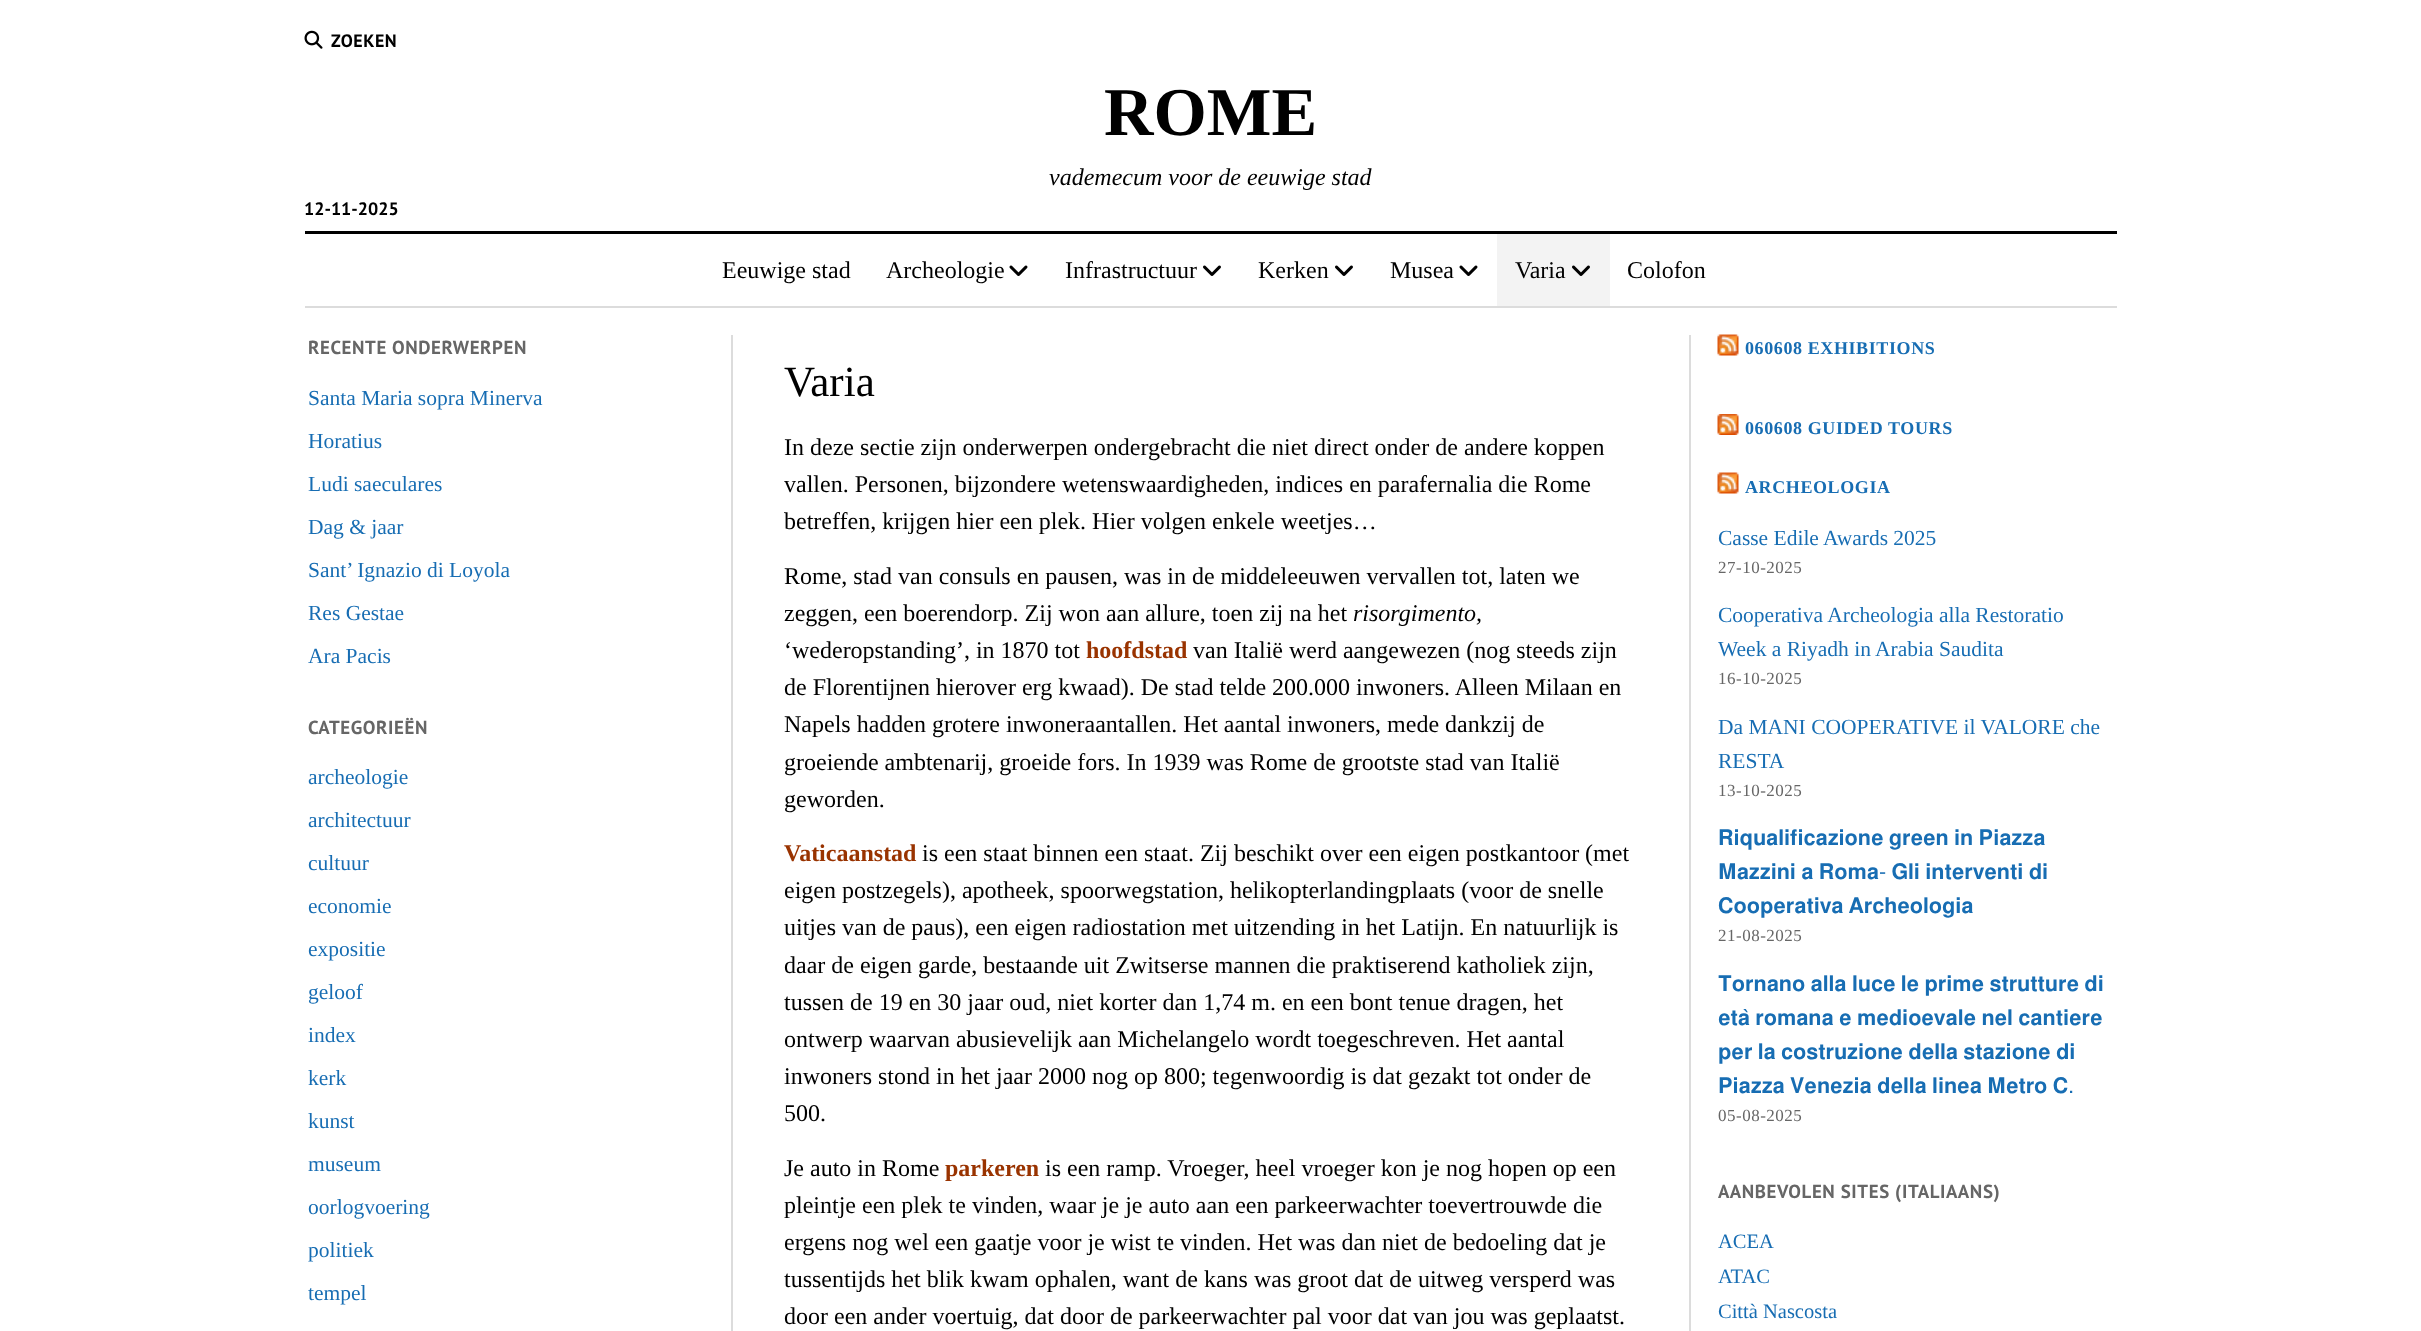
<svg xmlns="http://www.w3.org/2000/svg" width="2421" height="1331">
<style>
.a{font:bold 18px PT Sans;letter-spacing:0.5px;fill:#000}
.b{font:bold 68.5px Liberation Serif;fill:#000}
.c{font:italic 24px Liberation Serif;fill:#000}
.d{font:bold 18px PT Sans;fill:#000}
.e{font:24px Liberation Serif;fill:#000}
.f{font:bold 18.9px PT Sans;letter-spacing:0.6px;fill:#666}
.g{font:21.5px Liberation Serif;fill:#176db3}
.h{font:43px Liberation Serif;fill:#000}
.i{font:bold 24px Liberation Serif;fill:#930}
.j{font:bold 18px Liberation Serif;letter-spacing:0.6px;fill:#176db3}
.k{font:17px Liberation Serif;letter-spacing:0.5px;fill:#666}
.l{font:21.5px FreeSans;fill:#176db3}
.m{font:20.5px Liberation Serif;fill:#176db3}
</style>
<rect width="100%" height="100%" fill="#fff"/>
<image href="1.png" x="304" y="30" width="19" height="19"/>
<path fill="#000" d="M305 231h1812v3H305z"/>
<path fill="#dcdcdc" d="M305 306h1812v2H305z"/>
<image href="2.png" x="1009" y="265" width="19" height="11"/>
<image href="3.png" x="1203" y="265" width="18" height="11"/>
<image href="3.png" x="1335" y="265" width="18" height="11"/>
<image href="2.png" x="1459" y="265" width="19" height="11"/>
<path fill="#f3f3f3" d="M1497 234h113v72H1497z"/>
<image href="4.png" x="1572" y="265" width="18" height="11"/>
<path fill="#dcdcdc" d="M731 335h2v996H731z"/>
<path fill="#dcdcdc" d="M1689 335h2v996H1689z"/>
<image href="5.png" x="1717" y="334" width="22" height="22"/>
<image href="6.png" x="1717" y="414" width="22" height="21"/>
<image href="5.png" x="1717" y="472" width="22" height="22"/>
<text class="a" x="331" y="47">ZOEKEN</text>
<text class="b" x="1104" y="135">ROME</text>
<text class="c" x="1049" y="185">vademecum voor de eeuwige stad</text>
<text class="d" x="304" y="215">12-11-2025</text>
<text class="e" x="722" y="278">Eeuwige stad</text>
<text class="e" x="886" y="278">Archeologie</text>
<text class="e" x="1065" y="278">Infrastructuur</text>
<text class="e" x="1258" y="278">Kerken</text>
<text class="e" x="1390" y="278">Musea</text>
<text class="e" x="1515" y="278">Varia</text>
<text class="e" x="1627" y="278">Colofon</text>
<text class="f" x="308" y="354">RECENTE ONDERWERPEN</text>
<text class="g" x="308" y="405">Santa Maria sopra Minerva</text>
<text class="g" x="308" y="448">Horatius</text>
<text class="g" x="308" y="491">Ludi saeculares</text>
<text class="g" x="308" y="534">Dag &amp; jaar</text>
<text class="g" x="308" y="577">Sant’ Ignazio di Loyola</text>
<text class="g" x="308" y="620">Res Gestae</text>
<text class="g" x="308" y="663">Ara Pacis</text>
<text class="f" x="308" y="734">CATEGORIEËN</text>
<text class="g" x="308" y="784">archeologie</text>
<text class="g" x="308" y="827">architectuur</text>
<text class="g" x="308" y="870">cultuur</text>
<text class="g" x="308" y="913">economie</text>
<text class="g" x="308" y="956">expositie</text>
<text class="g" x="308" y="999">geloof</text>
<text class="g" x="308" y="1042">index</text>
<text class="g" x="308" y="1085">kerk</text>
<text class="g" x="308" y="1128">kunst</text>
<text class="g" x="308" y="1171">museum</text>
<text class="g" x="308" y="1214">oorlogvoering</text>
<text class="g" x="308" y="1257">politiek</text>
<text class="g" x="308" y="1300">tempel</text>
<text class="h" x="784" y="396">Varia</text>
<text class="e" x="784" y="455">In deze sectie zijn onderwerpen ondergebracht die niet direct onder de andere koppen</text>
<text class="e" x="784" y="492">vallen. Personen, bijzondere wetenswaardigheden, indices en parafernalia die Rome</text>
<text class="e" x="784" y="529">betreffen, krijgen hier een plek. Hier volgen enkele weetjes…</text>
<text class="e" x="784" y="584">Rome, stad van consuls en pausen, was in de middeleeuwen vervallen tot, laten we</text>
<text class="e" x="784" y="621">zeggen, een boerendorp. Zij won aan allure, toen zij na het</text>
<text class="c" x="1353" y="621">risorgimento,</text>
<text class="e" x="784" y="658">‘wederopstanding’, in 1870 tot</text>
<text class="i" x="1086" y="658">hoofdstad</text>
<text class="e" x="1193" y="658">van Italië werd aangewezen (nog steeds zijn</text>
<text class="e" x="784" y="695">de Florentijnen hierover erg kwaad). De stad telde 200.000 inwoners. Alleen Milaan en</text>
<text class="e" x="784" y="732">Napels hadden grotere inwoneraantallen. Het aantal inwoners, mede dankzij de</text>
<text class="e" x="784" y="770">groeiende ambtenarij, groeide fors. In 1939 was Rome de grootste stad van Italië</text>
<text class="e" x="784" y="807">geworden.</text>
<text class="i" x="784" y="861">Vaticaanstad</text>
<text class="e" x="922" y="861">is een staat binnen een staat. Zij beschikt over een eigen postkantoor (met</text>
<text class="e" x="784" y="898">eigen postzegels), apotheek, spoorwegstation, helikopterlandingplaats (voor de snelle</text>
<text class="e" x="784" y="935">uitjes van de paus), een eigen radiostation met uitzending in het Latijn. En natuurlijk is</text>
<text class="e" x="784" y="973">daar de eigen garde, bestaande uit Zwitserse mannen die praktiserend katholiek zijn,</text>
<text class="e" x="784" y="1010">tussen de 19 en 30 jaar oud, niet korter dan 1,74 m. en een bont tenue dragen, het</text>
<text class="e" x="784" y="1047">ontwerp waarvan abusievelijk aan Michelangelo wordt toegeschreven. Het aantal</text>
<text class="e" x="784" y="1084">inwoners stond in het jaar 2000 nog op 800; tegenwoordig is dat gezakt tot onder de</text>
<text class="e" x="784" y="1121">500.</text>
<text class="e" x="784" y="1176">Je auto in Rome</text>
<text class="i" x="945" y="1176">parkeren</text>
<text class="e" x="1045" y="1176">is een ramp. Vroeger, heel vroeger kon je nog hopen op een</text>
<text class="e" x="784" y="1213">pleintje een plek te vinden, waar je je auto aan een parkeerwachter toevertrouwde die</text>
<text class="e" x="784" y="1250">ergens nog wel een gaatje voor je wist te vinden. Het was dan niet de bedoeling dat je</text>
<text class="e" x="784" y="1287">tussentijds het blik kwam ophalen, want de kans was groot dat de uitweg versperd was</text>
<text class="e" x="784" y="1324">door een ander voertuig, dat door de parkeerwachter pal voor dat van jou was geplaatst.</text>
<text class="j" x="1745" y="354">060608 EXHIBITIONS</text>
<text class="j" x="1745" y="434">060608 GUIDED TOURS</text>
<text class="j" x="1745" y="493">ARCHEOLOGIA</text>
<text class="g" x="1718" y="545">Casse Edile Awards 2025</text>
<text class="k" x="1718" y="573">27-10-2025</text>
<text class="g" x="1718" y="622">Cooperativa Archeologia alla Restoratio</text>
<text class="g" x="1718" y="656">Week a Riyadh in Arabia Saudita</text>
<text class="k" x="1718" y="684">16-10-2025</text>
<text class="g" x="1718" y="734">Da MANI COOPERATIVE il VALORE che</text>
<text class="g" x="1718" y="768">RESTA</text>
<text class="k" x="1718" y="796">13-10-2025</text>
<text class="l" x="1718" y="845">𝐑𝐢𝐪𝐮𝐚𝐥𝐢𝐟𝐢𝐜𝐚𝐳𝐢𝐨𝐧𝐞 𝐠𝐫𝐞𝐞𝐧 𝐢𝐧 𝐏𝐢𝐚𝐳𝐳𝐚</text>
<text class="l" x="1718" y="879">𝐌𝐚𝐳𝐳𝐢𝐧𝐢 𝐚 𝐑𝐨𝐦𝐚- 𝐆𝐥𝐢 𝐢𝐧𝐭𝐞𝐫𝐯𝐞𝐧𝐭𝐢 𝐝𝐢</text>
<text class="l" x="1718" y="913">𝐂𝐨𝐨𝐩𝐞𝐫𝐚𝐭𝐢𝐯𝐚 𝐀𝐫𝐜𝐡𝐞𝐨𝐥𝐨𝐠𝐢𝐚</text>
<text class="k" x="1718" y="941">21-08-2025</text>
<text class="l" x="1718" y="991">𝐓𝐨𝐫𝐧𝐚𝐧𝐨 𝐚𝐥𝐥𝐚 𝐥𝐮𝐜𝐞 𝐥𝐞 𝐩𝐫𝐢𝐦𝐞 𝐬𝐭𝐫𝐮𝐭𝐭𝐮𝐫𝐞 𝐝𝐢</text>
<text class="l" x="1718" y="1025">𝐞𝐭𝐚̀ 𝐫𝐨𝐦𝐚𝐧𝐚 𝐞 𝐦𝐞𝐝𝐢𝐨𝐞𝐯𝐚𝐥𝐞 𝐧𝐞𝐥 𝐜𝐚𝐧𝐭𝐢𝐞𝐫𝐞</text>
<text class="l" x="1718" y="1059">𝐩𝐞𝐫 𝐥𝐚 𝐜𝐨𝐬𝐭𝐫𝐮𝐳𝐢𝐨𝐧𝐞 𝐝𝐞𝐥𝐥𝐚 𝐬𝐭𝐚𝐳𝐢𝐨𝐧𝐞 𝐝𝐢</text>
<text class="l" x="1718" y="1093">𝐏𝐢𝐚𝐳𝐳𝐚 𝐕𝐞𝐧𝐞𝐳𝐢𝐚 𝐝𝐞𝐥𝐥𝐚 𝐥𝐢𝐧𝐞𝐚 𝐌𝐞𝐭𝐫𝐨 𝐂.</text>
<text class="k" x="1718" y="1121">05-08-2025</text>
<text class="f" x="1718" y="1198">AANBEVOLEN SITES (ITALIAANS)</text>
<text class="m" x="1718" y="1248">ACEA</text>
<text class="m" x="1718" y="1283">ATAC</text>
<text class="m" x="1718" y="1318">Città Nascosta</text>
</svg>
